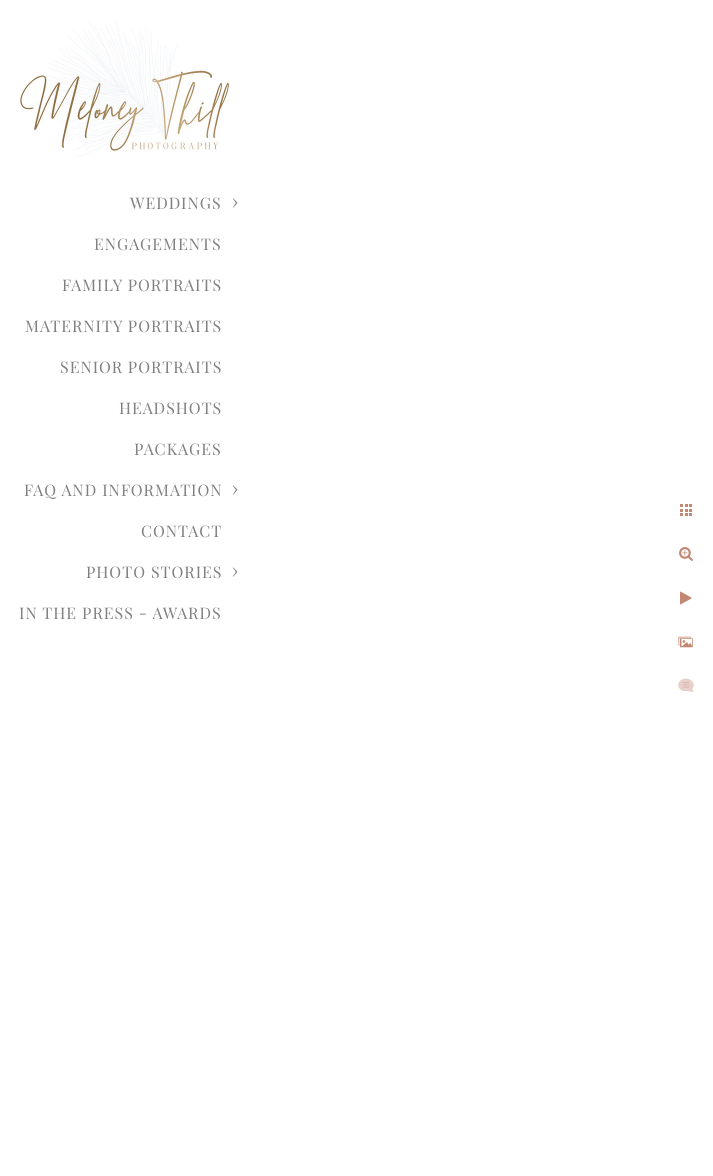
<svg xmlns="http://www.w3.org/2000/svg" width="713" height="1176">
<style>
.a{font:16px Playfair Display SC;letter-spacing:1px;fill:#808080}
</style>
<rect width="100%" height="100%" fill="#fff"/>
<image href="1.png" x="20" y="21" width="210" height="136"/>
<image href="2.png" x="232" y="198" width="6" height="10"/>
<image href="2.png" x="232" y="485" width="6" height="10"/>
<image href="2.png" x="232" y="567" width="6" height="10"/>
<image href="3.png" x="680" y="504" width="12" height="12"/>
<image href="4.png" x="679" y="547" width="14" height="14"/>
<image href="5.png" x="680" y="591" width="12" height="14"/>
<image href="6.png" x="678" y="636" width="15" height="12"/>
<image href="7.png" x="678" y="678" width="16" height="14"/>
<text class="a" x="130" y="209">WEDDINGS</text>
<text class="a" x="94" y="250">ENGAGEMENTS</text>
<text class="a" x="62" y="291">FAMILY PORTRAITS</text>
<text class="a" x="25" y="332">MATERNITY PORTRAITS</text>
<text class="a" x="60" y="373">SENIOR PORTRAITS</text>
<text class="a" x="119" y="414">HEADSHOTS</text>
<text class="a" x="134" y="455">PACKAGES</text>
<text class="a" x="24" y="496">FAQ AND INFORMATION</text>
<text class="a" x="141" y="537">CONTACT</text>
<text class="a" x="86" y="578">PHOTO STORIES</text>
<text class="a" x="19" y="619">IN THE PRESS - AWARDS</text>
</svg>
